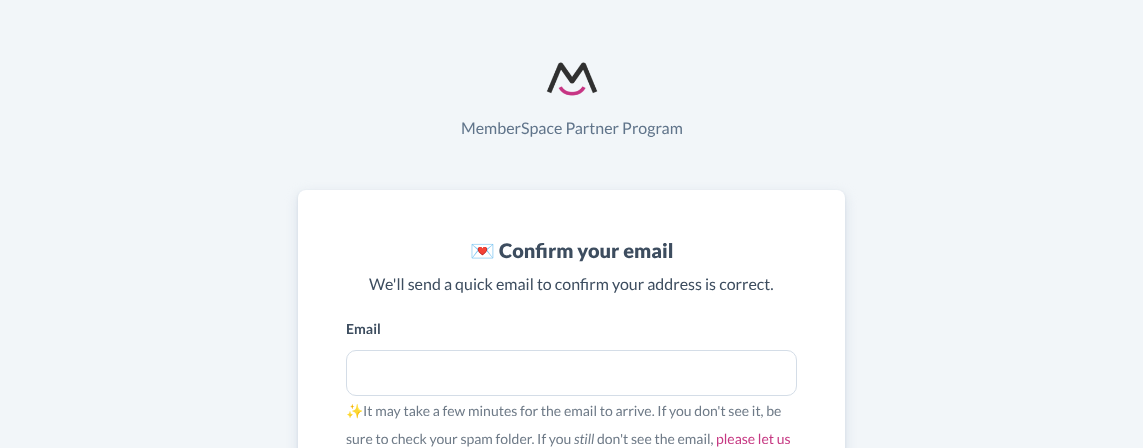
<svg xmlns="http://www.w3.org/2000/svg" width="1143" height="448">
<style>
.a{font:16px Lato;fill:#60748a}
.b{font:bold 20px Noto Color Emoji;fill:#3d4d5f}
.c{font:900 20px Lato;fill:#3d4d5f}
.d{font:16px Lato;fill:#3d4d5f}
.e{font:bold 14px Lato;fill:#3d4d5f}
.f{font:14px Noto Color Emoji;fill:#6e7a87}
.g{font:14px Lato;fill:#6e7a87}
.h{font:italic 14px Lato;fill:#6e7a87}
.i{font:14px Lato;fill:#c63882}
</style>
<rect width="100%" height="100%" fill="#f2f6f9"/>
<image href="1.png" x="546" y="62" width="52" height="34"/>
<rect fill="#d4dde7" filter="blur(6px)" x="298" y="194" width="547" height="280" rx="8"/>
<rect fill="#d4dde7" filter="blur(1px)" x="298" y="191" width="547" height="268" rx="8"/>
<rect fill="#fff" x="298" y="190" width="547" height="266" rx="8"/>
<rect fill="none" stroke="#d4dde7" x="346.5" y="350.5" width="450" height="45" rx="9.5"/>
<text class="a" x="461" y="134">MemberSpace Partner Program</text>
<text class="b" x="470" y="258">💌</text>
<text class="c" x="499" y="258">Confirm your email</text>
<text class="d" x="369" y="290">We'll send a quick email to confirm your address is correct.</text>
<text class="e" x="346" y="334">Email</text>
<text class="f" x="346" y="416">✨</text>
<text class="g" x="363" y="416">It may take a few minutes for the email to arrive. If you don't see it, be</text>
<text class="g" x="346" y="444">sure to check your spam folder. If you</text>
<text class="h" x="574" y="444">still</text>
<text class="g" x="597" y="444">don't see the email,</text>
<text class="i" x="716" y="444">please let us</text>
</svg>
